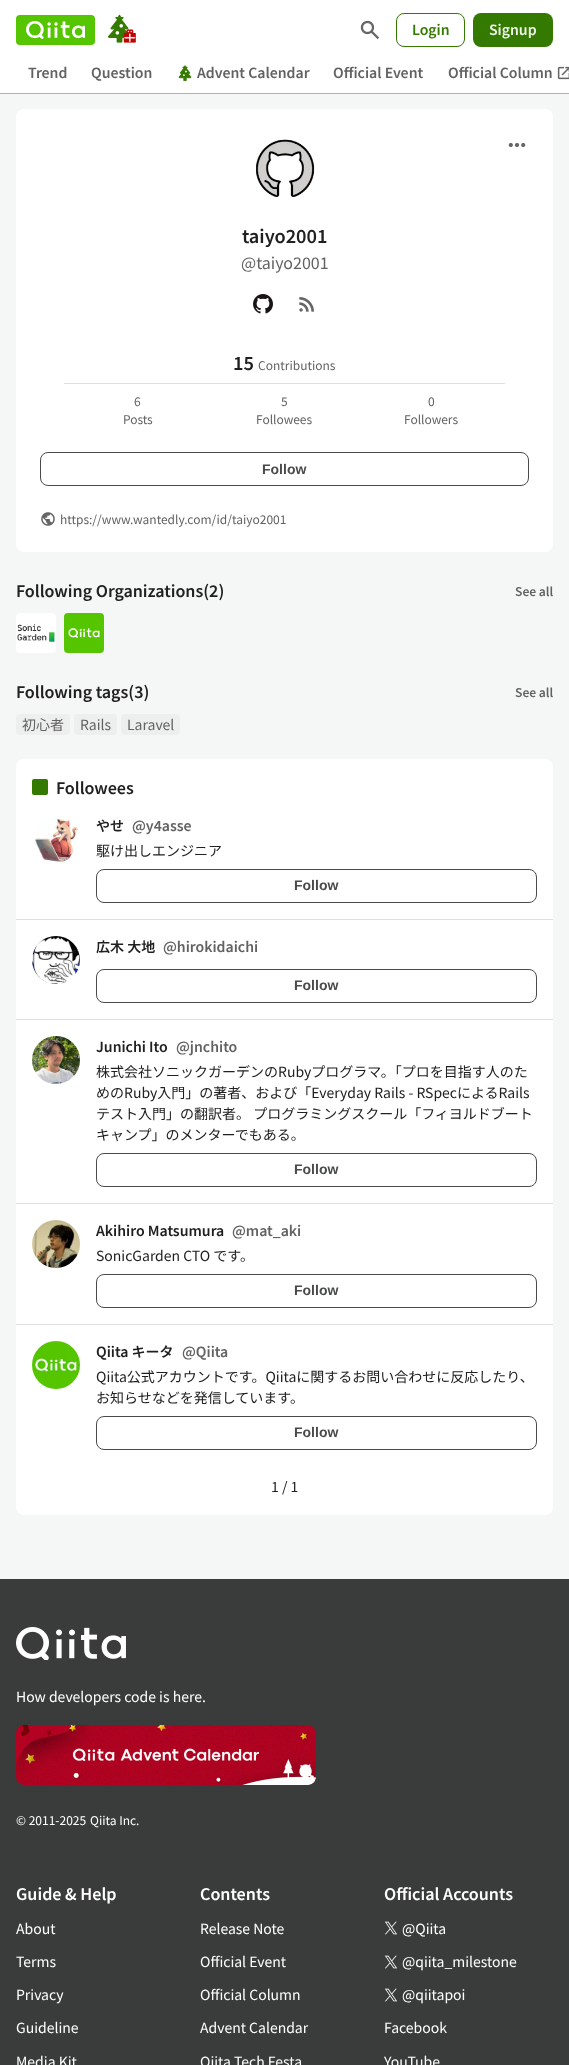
<svg xmlns="http://www.w3.org/2000/svg" width="569" height="2065">
<style>
.a{font:600 14px Noto Sans JP;fill:#357a00}
.b{font:600 14px Noto Sans JP;fill:#eff4eb}
.c{font:600 14px Noto Sans JP;fill:#626262}
.d{font:600 18px Noto Sans JP;fill:#202020}
.e{font:16px Noto Sans JP;fill:#626262}
.f{font:12px Noto Sans JP;fill:#626262}
.g{font:bold 14px Liberation Sans;fill:#494b4b}
.h{font:600 16px Noto Sans JP;fill:#202020}
.i{font:600 12px Noto Sans JP;fill:#626262}
.j{font:14px Noto Sans JP;fill:#626262}
.k{font:600 14px Noto Sans JP;fill:#202020}
.l{font:14px Noto Sans JP;fill:#202020}
.m{font:14px Noto Sans JP;fill:#fff}
.n{font:12px Noto Sans JP;fill:#fff}
.o{font:600 16px Noto Sans JP;fill:#fff}
</style>
<rect width="100%" height="100%" fill="#f5f6f6"/>
<path fill="none" stroke="#e1e2e2" d="M-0.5 -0.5h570v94H-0.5z"/>
<path fill="#1e212140" filter="blur(0.5px)" d="M0 1h569v93H0z"/>
<path fill="#fff" d="M0 0h569v93H0z"/>
<rect fill="#55c500" x="16" y="15" width="79" height="30" rx="4"/>
<image href="1.png" x="26" y="21" width="59" height="18"/>
<image href="2.png" x="108" y="14" width="28" height="29"/>
<image href="3.png" x="360" y="20" width="19" height="20"/>
<rect fill="none" stroke="#357a00" x="396.5" y="13.5" width="68" height="33" rx="7.5"/>
<rect fill="#357a00" x="473" y="13" width="80" height="34" rx="8"/>
<image href="4.png" x="178" y="65" width="14" height="16"/>
<image href="5.png" x="557" y="66" width="12" height="14"/>
<rect fill="#fff" x="16" y="109" width="537" height="443" rx="8"/>
<image href="6.png" x="508" y="143" width="18" height="4"/>
<image href="7.png" x="256" y="139" width="59" height="59"/>
<image href="8.png" x="253" y="294" width="20" height="20"/>
<image href="9.png" x="299" y="297" width="15" height="15"/>
<path fill="#e0e0e0" d="M64 383h441v1H64z"/>
<rect fill="none" stroke="#494b4b" x="40.5" y="452.5" width="488" height="33" rx="7.5"/>
<image href="10.png" x="41" y="512" width="14" height="14"/>
<rect fill="#fff" x="16" y="613" width="40" height="40" rx="4"/>
<image href="11.png" x="17" y="624" width="38" height="18"/>
<image href="12.png" x="64" y="613" width="40" height="40"/>
<rect fill="#edeeee" x="16" y="714" width="54" height="21" rx="4"/>
<rect fill="#edeeee" x="74" y="714" width="43" height="21" rx="4"/>
<rect fill="#edeeee" x="121" y="714" width="59" height="21" rx="4"/>
<rect fill="#fff" x="16" y="759" width="537" height="756" rx="8"/>
<rect fill="#357a00" x="32" y="779" width="16" height="16" rx="2"/>
<image href="13.png" x="35" y="818" width="43" height="45"/>
<rect fill="none" stroke="#494b4b" x="96.5" y="869.5" width="440" height="33" rx="7.5"/>
<path fill="#e0e0e0" d="M16 919h537v1H16z"/>
<image href="14.png" x="32" y="936" width="48" height="48"/>
<rect fill="none" stroke="#494b4b" x="96.5" y="969.5" width="440" height="33" rx="7.5"/>
<path fill="#e0e0e0" d="M16 1019h537v1H16z"/>
<image href="15.png" x="32" y="1036" width="48" height="48"/>
<rect fill="none" stroke="#494b4b" x="96.5" y="1153.5" width="440" height="33" rx="7.5"/>
<path fill="#e0e0e0" d="M16 1203h537v1H16z"/>
<image href="16.png" x="32" y="1220" width="48" height="48"/>
<rect fill="none" stroke="#494b4b" x="96.5" y="1274.5" width="440" height="33" rx="7.5"/>
<path fill="#e0e0e0" d="M16 1324h537v1H16z"/>
<image href="17.png" x="32" y="1341" width="48" height="48"/>
<rect fill="none" stroke="#494b4b" x="96.5" y="1416.5" width="440" height="33" rx="7.5"/>
<path fill="#3a3c3c" d="M0 1579h569v486H0z"/>
<image href="18.png" x="16" y="1627" width="110" height="33"/>
<image href="19.png" x="16" y="1725" width="300" height="60"/>
<image href="20.png" x="384" y="1921" width="14" height="14"/>
<image href="20.png" x="384" y="1955" width="14" height="14"/>
<image href="20.png" x="384" y="1988" width="14" height="14"/>
<text class="a" x="412" y="35">Login</text>
<text class="b" x="489" y="35">Signup</text>
<text class="c" x="28" y="78">Trend</text>
<text class="c" x="91" y="78">Question</text>
<text class="c" x="197" y="78">Advent Calendar</text>
<text class="c" x="333" y="78">Official Event</text>
<text class="c" x="448" y="78">Official Column</text>
<text class="d" x="242" y="243">taiyo2001</text>
<text class="e" x="241" y="269">@taiyo2001</text>
<text class="d" x="233" y="370">15</text>
<text class="f" x="258" y="370">Contributions</text>
<text class="f" x="134" y="406">6</text>
<text class="f" x="123" y="424">Posts</text>
<text class="f" x="281" y="406">5</text>
<text class="f" x="256" y="424">Followees</text>
<text class="f" x="428" y="406">0</text>
<text class="f" x="404" y="424">Followers</text>
<text class="g" x="262" y="474">Follow</text>
<text class="f" x="60" y="524">https://www.wantedly.com/id/taiyo2001</text>
<text class="h" x="16" y="597">Following Organizations(2)</text>
<text class="i" x="515" y="596">See all</text>
<text class="h" x="16" y="698">Following tags(3)</text>
<text class="i" x="515" y="697">See all</text>
<text class="j" x="22" y="730">初心者</text>
<text class="j" x="80" y="730">Rails</text>
<text class="j" x="127" y="730">Laravel</text>
<text class="h" x="56" y="794">Followees</text>
<text class="k" x="96" y="831">やせ</text>
<text class="c" x="132" y="831">@y4asse</text>
<text class="l" x="96" y="856">駆け出しエンジニア</text>
<text class="g" x="294" y="890">Follow</text>
<text class="k" x="96" y="952">広木 大地</text>
<text class="c" x="163" y="952">@hirokidaichi</text>
<text class="g" x="294" y="990">Follow</text>
<text class="k" x="96" y="1052">Junichi Ito</text>
<text class="c" x="176" y="1052">@jnchito</text>
<text class="l" x="96" y="1077">株式会社ソニックガーデンのRubyプログラマ。「プロを目指す人のた</text>
<text class="l" x="96" y="1098">めのRuby入門」の著者、および「Everyday Rails - RSpecによるRails</text>
<text class="l" x="96" y="1119">テスト入門」の翻訳者。 プログラミングスクール「フィヨルドブート</text>
<text class="l" x="96" y="1140">キャンプ」のメンターでもある。</text>
<text class="g" x="294" y="1174">Follow</text>
<text class="k" x="96" y="1236">Akihiro Matsumura</text>
<text class="c" x="232" y="1236">@mat_aki</text>
<text class="l" x="96" y="1261">SonicGarden CTO です。</text>
<text class="g" x="294" y="1295">Follow</text>
<text class="k" x="96" y="1357">Qiita キータ</text>
<text class="c" x="182" y="1357">@Qiita</text>
<text class="l" x="96" y="1382">Qiita公式アカウントです。Qiitaに関するお問い合わせに反応したり、</text>
<text class="l" x="96" y="1403">お知らせなどを発信しています。</text>
<text class="g" x="294" y="1437">Follow</text>
<text class="l" x="271" y="1492">1 / 1</text>
<text class="m" x="16" y="1702">How developers code is here.</text>
<text class="n" x="16" y="1825">© 2011-2025</text>
<text class="n" x="90" y="1825">Qiita Inc.</text>
<text class="o" x="16" y="1900">Guide &amp; Help</text>
<text class="m" x="16" y="1934">About</text>
<text class="m" x="16" y="1967">Terms</text>
<text class="m" x="16" y="2000">Privacy</text>
<text class="m" x="16" y="2033">Guideline</text>
<text class="m" x="16" y="2067">Media Kit</text>
<text class="o" x="200" y="1900">Contents</text>
<text class="m" x="200" y="1934">Release Note</text>
<text class="m" x="200" y="1967">Official Event</text>
<text class="m" x="200" y="2000">Official Column</text>
<text class="m" x="200" y="2033">Advent Calendar</text>
<text class="m" x="200" y="2067">Qiita Tech Festa</text>
<text class="o" x="384" y="1900">Official Accounts</text>
<text class="m" x="402" y="1934">@Qiita</text>
<text class="m" x="402" y="1967">@qiita_milestone</text>
<text class="m" x="402" y="2000">@qiitapoi</text>
<text class="m" x="384" y="2033">Facebook</text>
<text class="m" x="384" y="2067">YouTube</text>
</svg>
